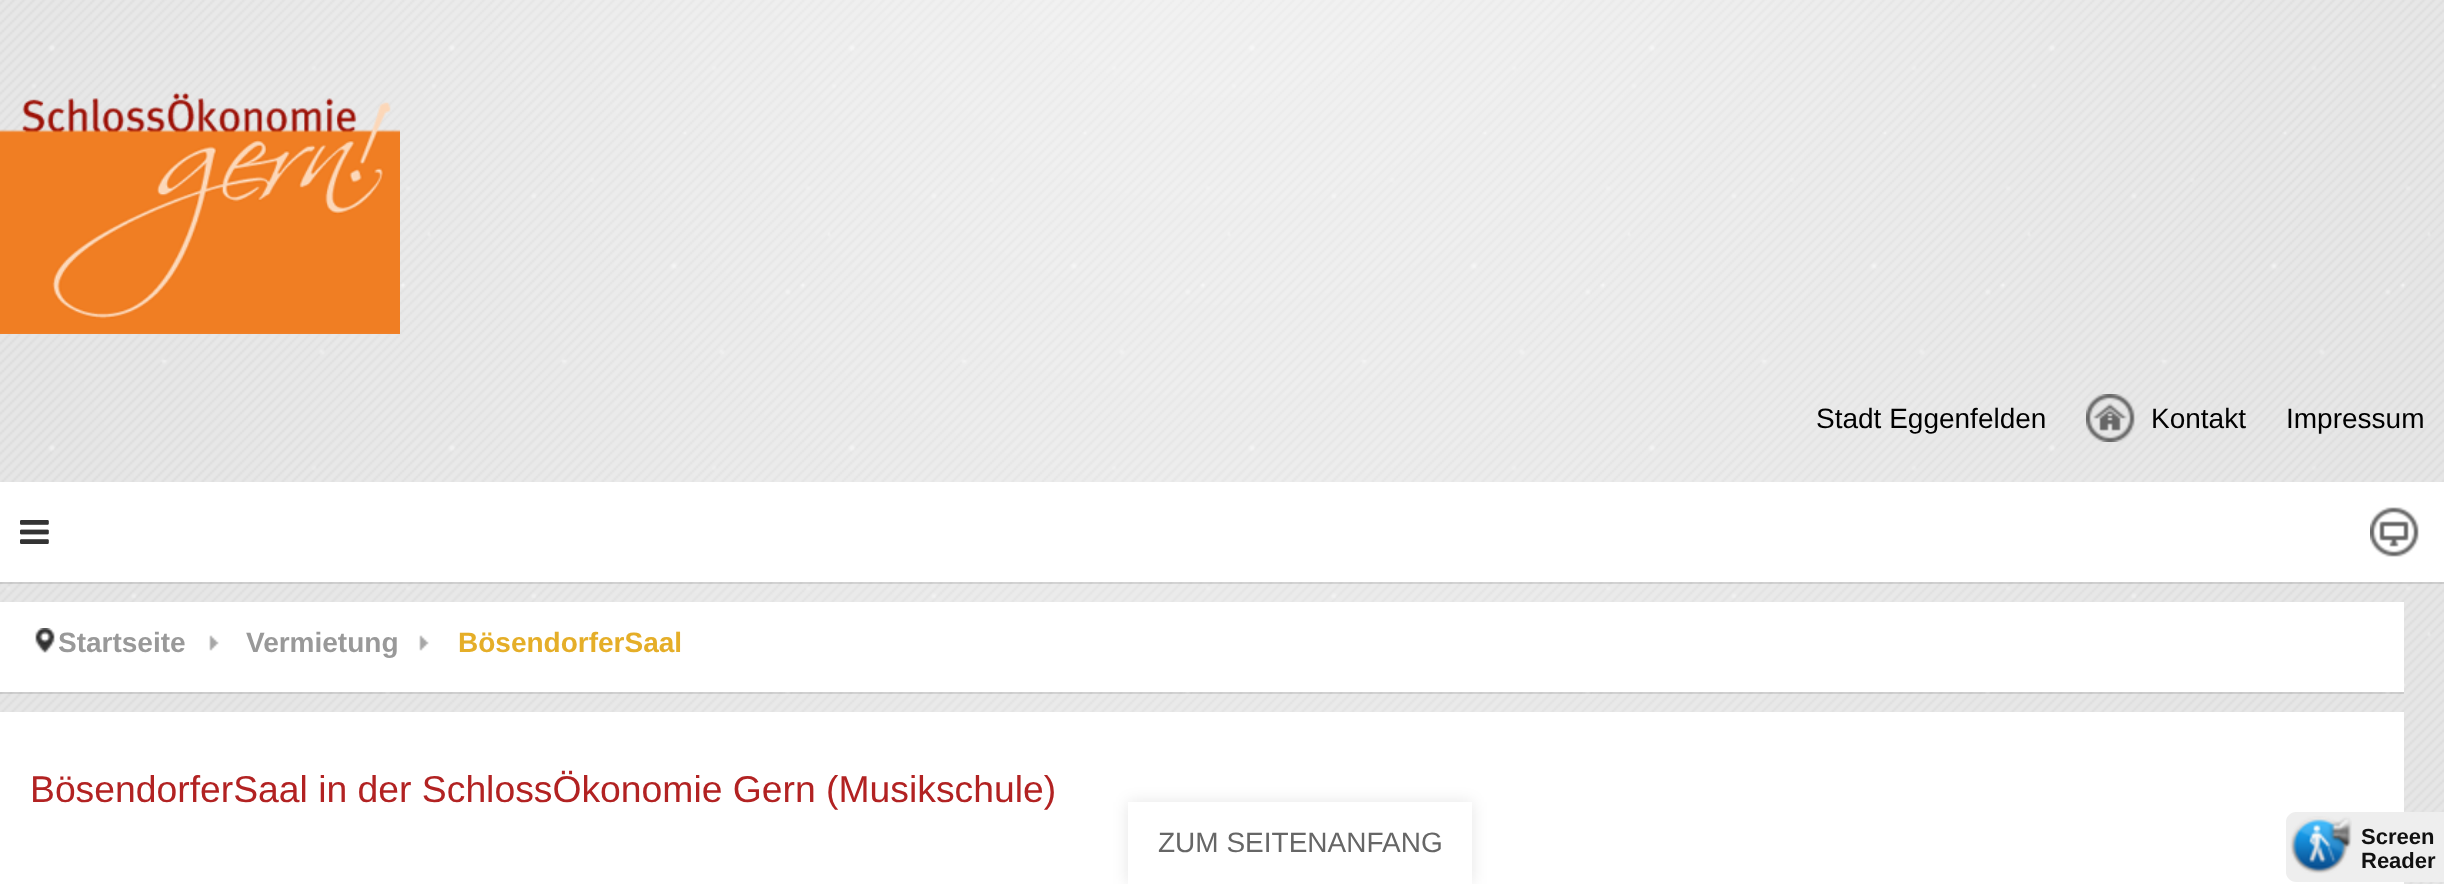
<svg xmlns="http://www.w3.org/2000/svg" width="2444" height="884">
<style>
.a{font:28px Liberation Sans;fill:#000}
.b{font:bold 28px Liberation Sans;fill:#999}
.c{font:bold 28px Liberation Sans;fill:#e5ae28}
.d{font:37.3px Liberation Sans;fill:#b22222}
.e{font:28px Liberation Sans;fill:#666}
.f{font:bold 22px Liberation Sans;fill:#111}
</style>
<defs>
<clipPath id="clip1"><path d="M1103 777h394v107h-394zm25 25h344v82h-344z" clip-rule="evenodd"/></clipPath>
</defs>
<rect width="100%" height="100%" fill="#fff"/>
<image href="1.png" x="0" y="0" width="2444" height="884"/>
<image href="2.png" x="0" y="92" width="400" height="242"/>
<image href="3.png" x="2086" y="394" width="49" height="48"/>
<path fill="#0000001a" d="M0 582h2444v2H0z"/>
<path fill="#fff" d="M0 482h2444v100H0z"/>
<image href="4.png" x="20" y="520" width="29" height="24"/>
<image href="5.png" x="2370" y="507" width="49" height="50"/>
<path fill="#0000001a" d="M0 692h2404v2H0z"/>
<path fill="#fff" d="M0 602h2404v90H0z"/>
<image href="6.png" x="35" y="628" width="20" height="25"/>
<image href="7.png" x="209" y="635" width="10" height="16"/>
<image href="7.png" x="419" y="635" width="10" height="16"/>
<path fill="#fff" d="M0 712h2404v172H0z"/>
<g clip-path="url(#clip1)">
<path fill="#0000001a" filter="blur(8px)" d="M1128 802h344v82H1128z"/>
</g>
<path fill="#eee" d="M2296 812h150v70h-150c-5.5 0-10-4.5-10-10v-50c0-5.5 4.5-10 10-10z"/>
<image href="8.png" x="2290" y="816" width="62" height="58"/>
<text class="a" x="1816" y="428">Stadt Eggenfelden</text>
<text class="a" x="2151" y="428">Kontakt</text>
<text class="a" x="2286" y="428">Impressum</text>
<text class="b" x="58" y="652">Startseite</text>
<text class="b" x="246" y="652">Vermietung</text>
<text class="c" x="458" y="652">BösendorferSaal</text>
<text class="d" x="30" y="802">BösendorferSaal in der SchlossÖkonomie Gern (Musikschule)</text>
<text class="e" x="1158" y="852">ZUM SEITENANFANG</text>
<text class="f" x="2361" y="844">Screen</text>
<text class="f" x="2361" y="868">Reader</text>
</svg>
